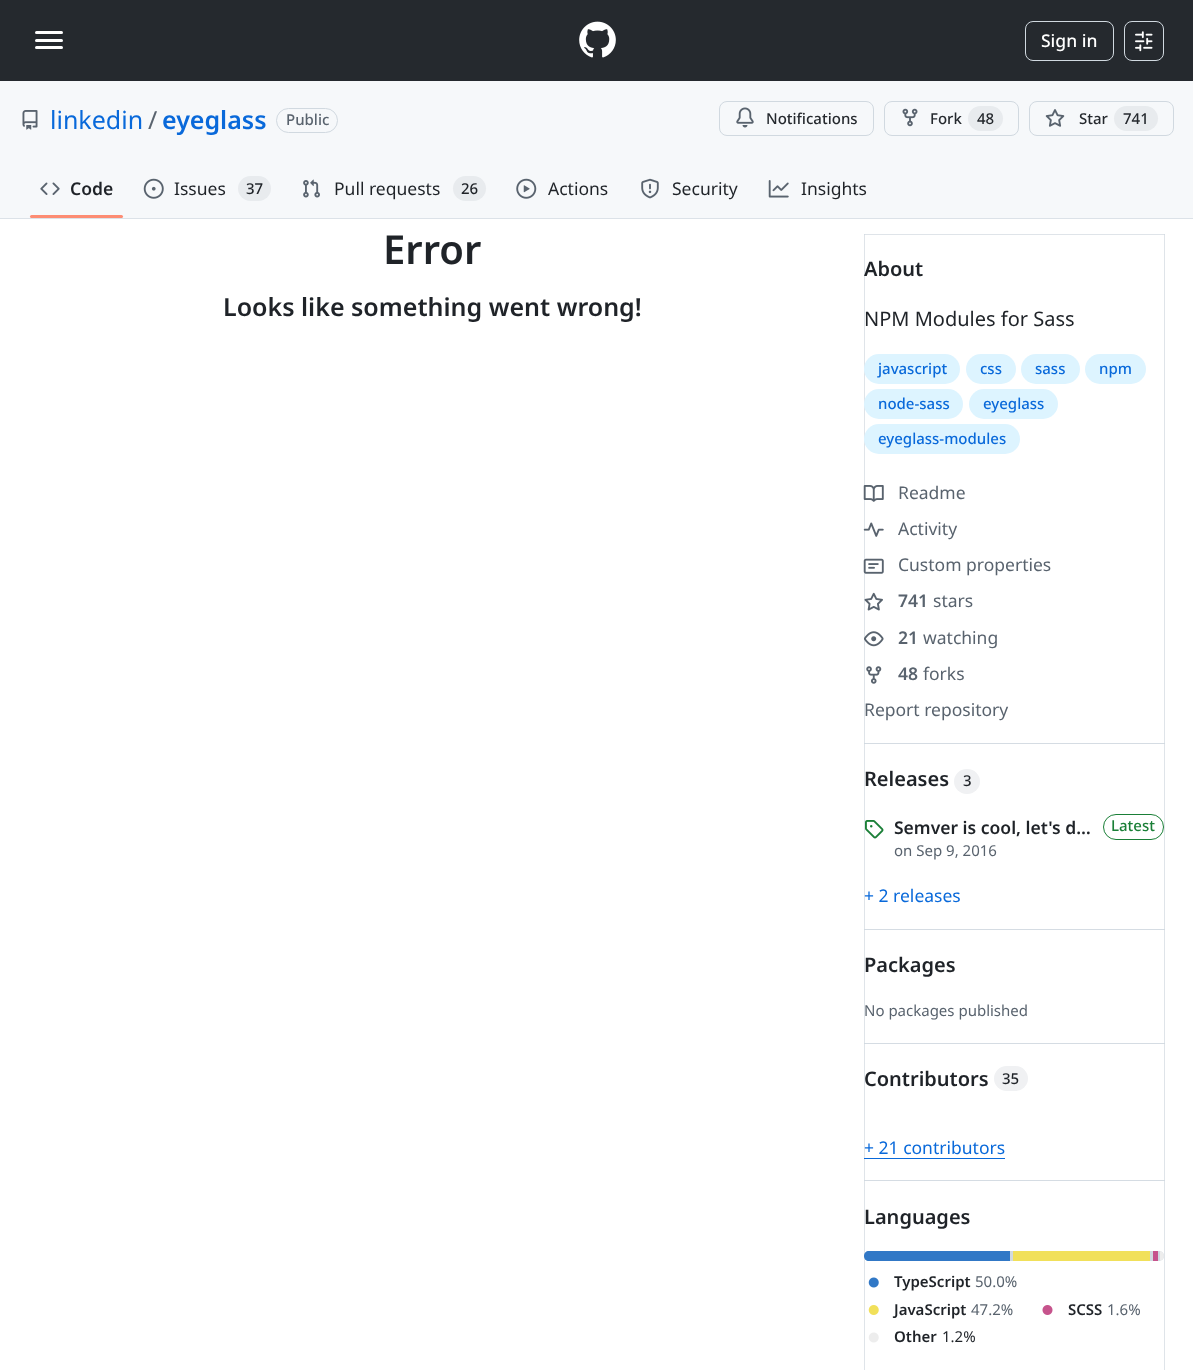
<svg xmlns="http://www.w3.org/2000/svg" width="1193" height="1370">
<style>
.a{font:500 17.5px Noto Sans;fill:#fff}
.b{font:25px Noto Sans;fill:#0969da}
.c{font:25px Noto Sans;fill:#59636e}
.d{font:600 25px Noto Sans;fill:#0969da}
.e{font:500 15px Noto Sans;fill:#59636e}
.f{font:500 15px Noto Sans;fill:#25292e}
.g{font:600 17.5px Noto Sans;fill:#1f2328}
.h{font:17.5px Noto Sans;fill:#1f2328}
.i{font:500 15px Noto Sans;fill:#1f2328}
.j{font:600 40px Noto Sans;fill:#1f2328}
.k{font:600 25px Noto Sans;fill:#1f2328}
.l{font:600 20px Noto Sans;fill:#1f2328}
.m{font:20px Noto Sans;fill:#1f2328}
.n{font:500 15px Noto Sans;fill:#0969da}
.o{font:17.5px Noto Sans;fill:#59636e}
.p{font:600 17.5px Noto Sans;fill:#59636e}
.q{font:500 15px Noto Sans;fill:#1a7f37}
.r{font:15px Noto Sans;fill:#59636e}
.s{font:17.5px Noto Sans;fill:#0969da}
.t{font:600 15px Noto Sans;fill:#1f2328}
.u{font:15px Noto Sans;fill:#1f2328}
</style>
<defs>
<clipPath id="clip1"><rect x="864" y="1251" width="300" height="10" rx="5"/></clipPath>
</defs>
<rect width="100%" height="100%" fill="#fff"/>
<path fill="#dfe4e9" d="M864 234h1v1136H864z"/>
<path fill="#dfe4e9" d="M1164 234h1v1136H1164z"/>
<path fill="#25292e" d="M0 0h1193v81H0z"/>
<rect fill="#fff" x="35" y="31" width="28" height="3" rx="1.5"/>
<rect fill="#fff" x="35" y="39" width="28" height="3" rx="1.5"/>
<rect fill="#fff" x="35" y="46" width="28" height="3" rx="1.5"/>
<image href="1.png" x="579" y="21" width="37" height="37"/>
<rect fill="none" stroke="#d1d9e0" x="1025.5" y="21.5" width="88" height="39" rx="7.5"/>
<rect fill="none" stroke="#d1d9e0" x="1124.5" y="21.5" width="39" height="39" rx="7.5"/>
<image href="2.png" x="1135" y="31" width="18" height="21"/>
<path fill="#f6f8fa" d="M0 81h1193v137H0z"/>
<image href="3.png" x="22" y="110" width="16" height="20"/>
<rect fill="none" stroke="#d1d9e0" x="276.5" y="108.5" width="61" height="24" rx="12"/>
<rect fill="none" stroke="#d1d9e0" x="719.5" y="101.5" width="154" height="34" rx="7.5"/>
<image href="4.png" x="736" y="107" width="18" height="21"/>
<rect fill="none" stroke="#d1d9e0" x="884.5" y="101.5" width="134" height="34" rx="7.5"/>
<image href="5.png" x="902" y="108" width="16" height="19"/>
<rect fill="#e8ebee" x="968" y="106" width="35" height="25" rx="12.5"/>
<rect fill="none" stroke="#d1d9e0" x="1029.5" y="101.5" width="144" height="34" rx="7.5"/>
<image href="6.png" x="1045" y="109" width="20" height="18"/>
<rect fill="#e8ebee" x="1114" y="106" width="44" height="25" rx="12.5"/>
<path fill="#dce2e8" d="M0 218h1193v1H0z"/>
<image href="7.png" x="40" y="182" width="20" height="13"/>
<rect fill="#fd8c73" x="30" y="215" width="93" height="3" rx="1.5"/>
<image href="8.png" x="143" y="178" width="21" height="21"/>
<rect fill="#e8ebee" x="238" y="176" width="33" height="25" rx="12.5"/>
<image href="9.png" x="303" y="179" width="17" height="19"/>
<rect fill="#e8ebee" x="453" y="176" width="33" height="25" rx="12.5"/>
<image href="10.png" x="516" y="178" width="21" height="21"/>
<image href="11.png" x="641" y="178" width="18" height="21"/>
<image href="12.png" x="768" y="180" width="21" height="18"/>
<path fill="#dfe4e9" d="M864 234h301v1H864z"/>
<path fill="#d5dce3" d="M864 234h1v1H864z"/>
<path fill="#d5dce3" d="M1164 234h1v1H1164z"/>
<rect fill="#ddf4ff" x="864" y="354" width="96" height="30" rx="15"/>
<rect fill="#ddf4ff" x="966" y="354" width="50" height="30" rx="15"/>
<rect fill="#ddf4ff" x="1021" y="354" width="59" height="30" rx="15"/>
<rect fill="#ddf4ff" x="1085" y="354" width="61" height="30" rx="15"/>
<rect fill="#ddf4ff" x="864" y="389" width="99" height="30" rx="15"/>
<rect fill="#ddf4ff" x="969" y="389" width="89" height="30" rx="15"/>
<rect fill="#ddf4ff" x="864" y="424" width="156" height="30" rx="15"/>
<image href="13.png" x="863" y="485" width="21" height="17"/>
<image href="14.png" x="863" y="522" width="21" height="15"/>
<image href="15.png" x="863" y="558" width="21" height="16"/>
<image href="16.png" x="864" y="592" width="19" height="19"/>
<image href="17.png" x="864" y="631" width="20" height="16"/>
<image href="18.png" x="866" y="666" width="16" height="18"/>
<path fill="#d5dce3" d="M864 743h301v1H864z"/>
<path fill="#d1d9e0" d="M864 743h1v1H864z"/>
<path fill="#d1d9e0" d="M1164 743h1v1H1164z"/>
<rect fill="#f0f1f3" x="954" y="769" width="26" height="25" rx="12.5"/>
<image href="19.png" x="865" y="820" width="19" height="19"/>
<rect fill="none" stroke="#1a7f37" x="1103.5" y="814.5" width="60" height="25" rx="12.5"/>
<path fill="#d5dce3" d="M864 929h301v1H864z"/>
<path fill="#d1d9e0" d="M864 929h1v1H864z"/>
<path fill="#d1d9e0" d="M1164 929h1v1H1164z"/>
<path fill="#d5dce3" d="M864 1043h301v1H864z"/>
<path fill="#d1d9e0" d="M864 1043h1v1H864z"/>
<path fill="#d1d9e0" d="M1164 1043h1v1H1164z"/>
<rect fill="#f0f1f3" x="994" y="1066" width="34" height="25" rx="12.5"/>
<path fill="#0969da" d="M864 1158h141v1H864z"/>
<path fill="#d5dce3" d="M864 1180h301v1H864z"/>
<path fill="#d1d9e0" d="M864 1180h1v1H864z"/>
<path fill="#d1d9e0" d="M1164 1180h1v1H1164z"/>
<rect fill="#d1d9e0" x="864" y="1251" width="300" height="10" rx="5"/>
<path fill="#3178c6" d="M869 1251h141v10h-141c-3 0-5-2-5-5c0-3 2-5 5-5z"/>
<path fill="#f1e05a" d="M1013 1251h137v10H1013z"/>
<path fill="#c6538c" d="M1153 1251h5v10H1153z"/>
<g clip-path="url(#clip1)">
<path fill="#ededed" d="M1160 1251h4v10H1160z"/>
</g>
<image href="20.png" x="868" y="1277" width="11" height="11"/>
<image href="21.png" x="868" y="1305" width="11" height="10"/>
<image href="22.png" x="1042" y="1305" width="11" height="10"/>
<image href="23.png" x="868" y="1332" width="11" height="11"/>
<text class="a" x="1041" y="47">Sign in</text>
<text class="b" x="50" y="129">linkedin</text>
<text class="c" x="148" y="129">/</text>
<text class="d" x="162" y="129">eyeglass</text>
<text class="e" x="286" y="125">Public</text>
<text class="f" x="766" y="124">Notifications</text>
<text class="f" x="930" y="124">Fork</text>
<text class="f" x="977" y="124">48</text>
<text class="f" x="1079" y="124">Star</text>
<text class="f" x="1123" y="124">741</text>
<text class="g" x="70" y="195">Code</text>
<text class="h" x="174" y="195">Issues</text>
<text class="i" x="246" y="194">37</text>
<text class="h" x="334" y="195">Pull requests</text>
<text class="i" x="461" y="194">26</text>
<text class="h" x="548" y="195">Actions</text>
<text class="h" x="672" y="195">Security</text>
<text class="h" x="801" y="195">Insights</text>
<text class="j" x="383" y="264">Error</text>
<text class="k" x="223" y="316">Looks like something went wrong!</text>
<text class="l" x="864" y="276">About</text>
<text class="m" x="864" y="326">NPM Modules for Sass</text>
<text class="n" x="878" y="374">javascript</text>
<text class="n" x="980" y="374">css</text>
<text class="n" x="1035" y="374">sass</text>
<text class="n" x="1099" y="374">npm</text>
<text class="n" x="878" y="409">node-sass</text>
<text class="n" x="983" y="409">eyeglass</text>
<text class="n" x="878" y="444">eyeglass-modules</text>
<text class="o" x="898" y="499">Readme</text>
<text class="o" x="898" y="535">Activity</text>
<text class="o" x="898" y="571">Custom properties</text>
<text class="p" x="898" y="607">741</text>
<text class="o" x="933" y="607">stars</text>
<text class="p" x="898" y="644">21</text>
<text class="o" x="923" y="644">watching</text>
<text class="p" x="898" y="680">48</text>
<text class="o" x="923" y="680">forks</text>
<text class="o" x="864" y="716">Report repository</text>
<text class="l" x="864" y="786">Releases</text>
<text class="i" x="963" y="786">3</text>
<text class="g" x="894" y="834">Semver is cool, let's d…</text>
<text class="q" x="1111" y="831">Latest</text>
<text class="r" x="894" y="856">on Sep 9, 2016</text>
<text class="s" x="864" y="902">+ 2 releases</text>
<text class="l" x="864" y="972">Packages</text>
<text class="r" x="864" y="1016">No packages published</text>
<text class="l" x="864" y="1086">Contributors</text>
<text class="i" x="1002" y="1084">35</text>
<text class="s" x="864" y="1154">+ 21 contributors</text>
<text class="l" x="864" y="1224">Languages</text>
<text class="t" x="894" y="1287">TypeScript</text>
<text class="r" x="975" y="1287">50.0%</text>
<text class="t" x="894" y="1315">JavaScript</text>
<text class="r" x="971" y="1315">47.2%</text>
<text class="t" x="1068" y="1315">SCSS</text>
<text class="r" x="1107" y="1315">1.6%</text>
<text class="t" x="894" y="1342">Other</text>
<text class="u" x="942" y="1342">1.2%</text>
</svg>
